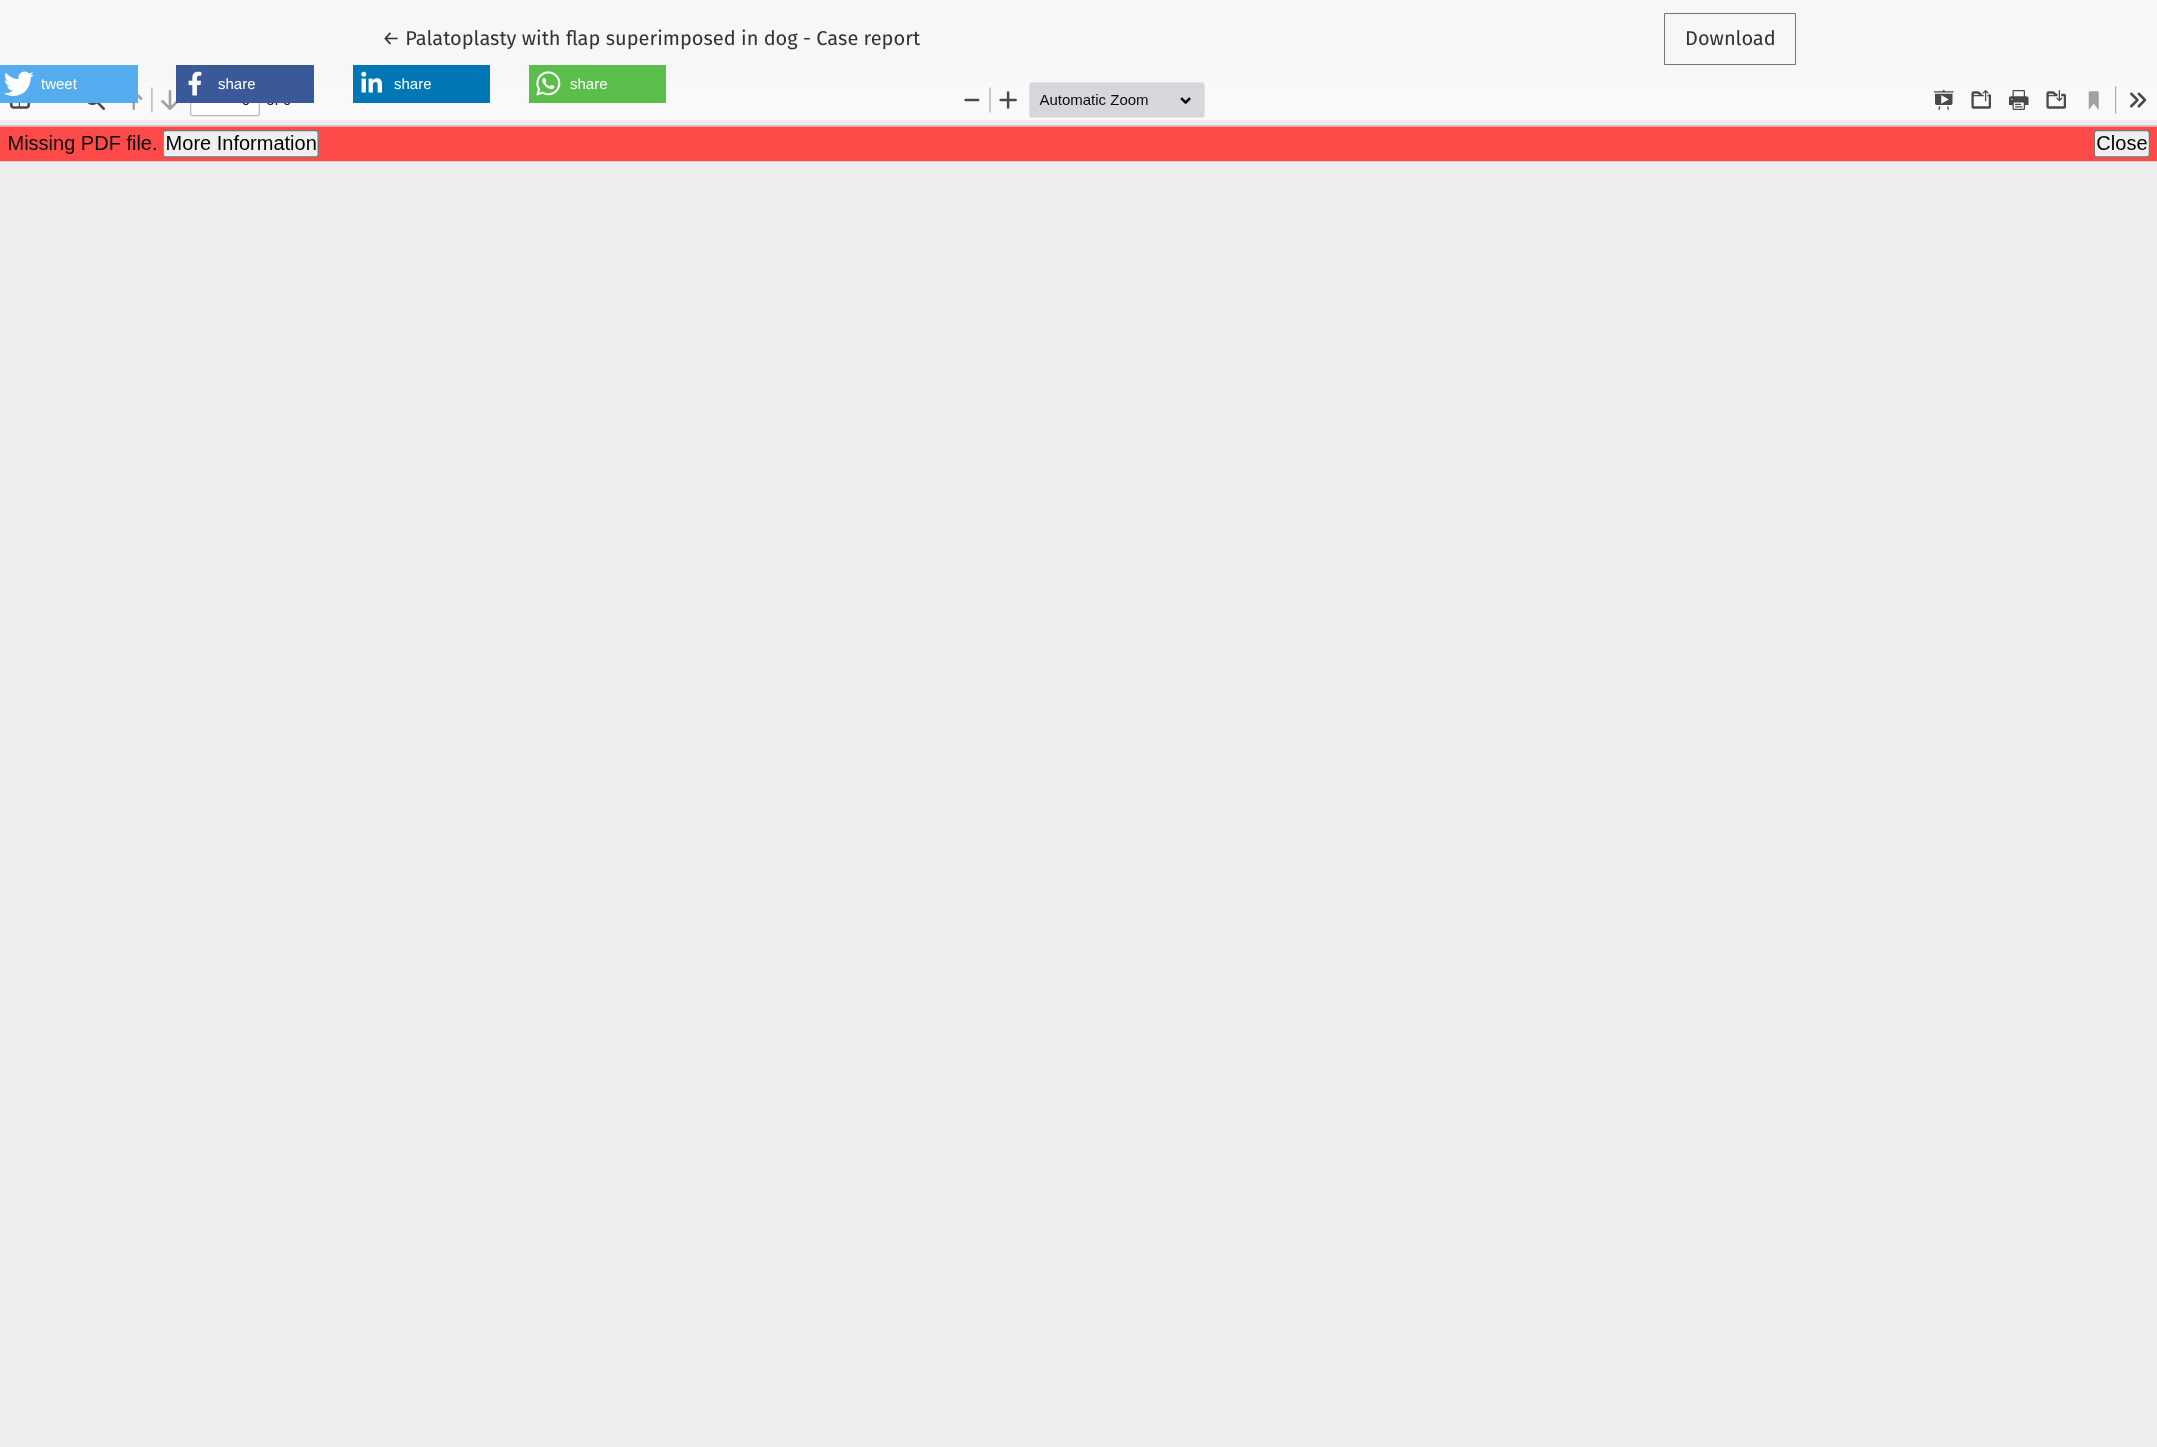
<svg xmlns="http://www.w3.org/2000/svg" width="2157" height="1447">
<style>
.a{font:20px Fira Sans;fill:#333}
.b{font:15px Liberation Sans;fill:#fff}
</style>
<rect width="100%" height="100%" fill="#f7f7f7"/>
<path fill="none" stroke="#757575" d="M1664.5 13.5h131v51H1664.5z"/>
<image href="5.png" x="0" y="82" width="2157" height="1365"/>
<path fill="#55acee" d="M0 65h138v38H0z"/>
<image href="1.png" x="4" y="71" width="30" height="25"/>
<path fill="#3b5998" d="M176 65h138v38H176z"/>
<image href="2.png" x="188" y="71" width="14" height="25"/>
<path fill="#0077b5" d="M353 65h137v38H353z"/>
<image href="3.png" x="361" y="71" width="22" height="22"/>
<path fill="#5cbe4a" d="M529 65h137v38H529z"/>
<image href="4.png" x="536" y="71" width="25" height="25"/>
<text class="a" x="382" y="45">← Palatoplasty with flap superimposed in dog - Case report</text>
<text class="a" x="1685" y="45">Download</text>
<text class="b" x="41" y="89">tweet</text>
<text class="b" x="218" y="89">share</text>
<text class="b" x="394" y="89">share</text>
<text class="b" x="570" y="89">share</text>
</svg>
